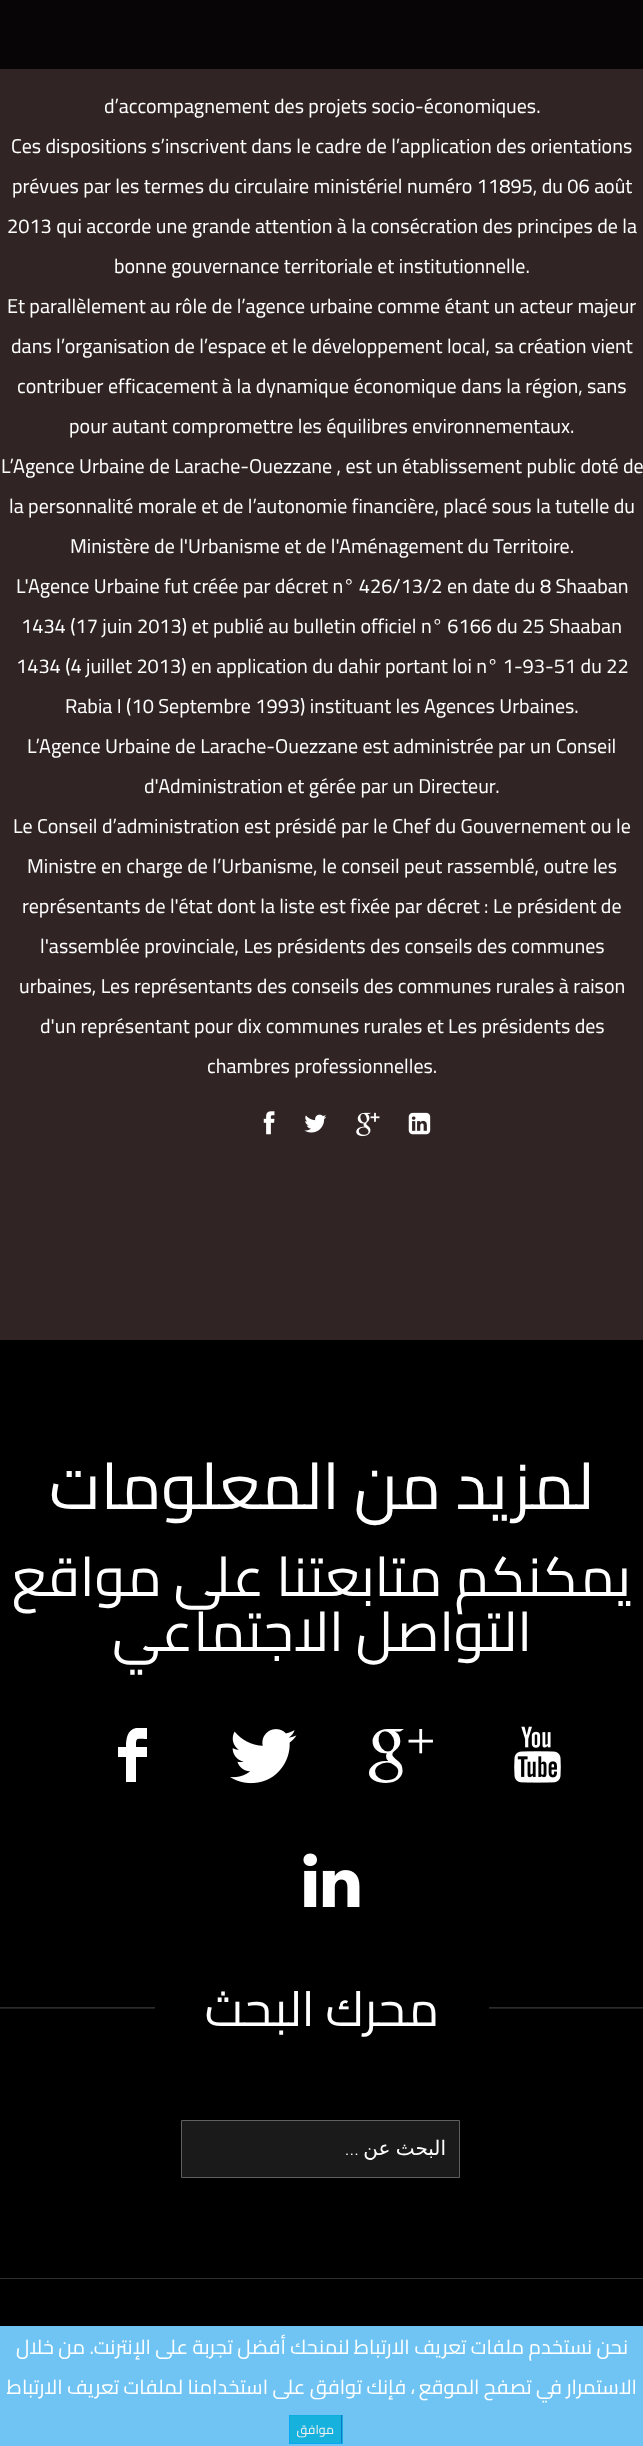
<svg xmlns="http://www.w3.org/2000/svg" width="643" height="2446">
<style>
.a{font:20px Cairo;fill:#fff}
.b{font:65px Cairo;direction:rtl;fill:#fff}
.c{font:55px Cairo;direction:rtl;fill:#fff}
.d{font:54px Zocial;fill:#fff}
.e{font:48.75px Cairo;direction:rtl;fill:#fff}
.f{font:300 20px Roboto;direction:rtl;fill:#fff}
.g{font:20px DejaVu Sans;direction:rtl;fill:#fff}
.h{font:20px Cairo;direction:rtl;fill:#fff}
.i{font:12.5px Cairo;direction:rtl;fill:#f5f0f0}
</style>
<rect width="100%" height="100%" fill="#312424"/>
<path fill="#000000d9" d="M0 0h643v69H0z"/>
<image href="1.png" x="263" y="1111" width="12" height="24"/>
<image href="2.png" x="304" y="1114" width="23" height="19"/>
<image href="3.png" x="356" y="1112" width="24" height="25"/>
<image href="4.png" x="408" y="1112" width="23" height="23"/>
<path fill="#000" d="M0 1340h643v986H0z"/>
<path fill="#2f2f2f" d="M0 2278h643v1H0z"/>
<path fill="#fff" d="M118 1757v-10h8c0-8 1-17 10-19h11v11c-11 0-11-2-11 8h11v10h-11v25h-10v-25z"/>
<image href="5.png" x="230" y="1729" width="67" height="55"/>
<image href="6.png" x="514" y="1726" width="47" height="57"/>
<image href="7.png" x="303" y="1853" width="57" height="54"/>
<image href="8.png" x="0" y="2007" width="643" height="2"/>
<path fill="#000" d="M155 2007h334v2H155z"/>
<path fill="#1a1a1a" stroke="#5f5f5f" d="M181.5 2120.5h278v57H181.5z"/>
<path fill="#6fc4f3" d="M0 2326h643v120H0z"/>
<path fill="#16b1dd" d="M290 2416h53v27H290z"/>
<path fill="#0dafe1" d="M289 2415h54v1H289z"/>
<path fill="#0f78c8" d="M341 2415h1v29H341z"/>
<path fill="#03a9f4" d="M289 2443h54v1H289z"/>
<path fill="#03a9f4" d="M289 2415h1v29H289z"/>
<text class="a" x="104" y="113">d’accompagnement des projets socio-économiques.</text>
<text class="a" x="11" y="153">Ces dispositions s’inscrivent dans le cadre de l’application des orientations</text>
<text class="a" x="12" y="193">prévues par les termes du circulaire ministériel numéro 11895, du 06 août</text>
<text class="a" x="7" y="233">2013 qui accorde une grande attention à la consécration des principes de la</text>
<text class="a" x="114" y="273">bonne gouvernance territoriale et institutionnelle.</text>
<text class="a" x="7" y="313">Et parallèlement au rôle de l’agence urbaine comme étant un acteur majeur</text>
<text class="a" x="11" y="353">dans l’organisation de l’espace et le développement local, sa création vient</text>
<text class="a" x="17" y="393">contribuer efficacement à la dynamique économique dans la région, sans</text>
<text class="a" x="69" y="433">pour autant compromettre les équilibres environnementaux.</text>
<text class="a" x="1" y="473">L’Agence Urbaine de Larache-Ouezzane , est un établissement public doté de</text>
<text class="a" x="9" y="513">la personnalité morale et de l’autonomie financière, placé sous la tutelle du</text>
<text class="a" x="70" y="553">Ministère de l'Urbanisme et de l'Aménagement du Territoire.</text>
<text class="a" x="16" y="593">L'Agence Urbaine fut créée par décret n° 426/13/2 en date du 8 Shaaban</text>
<text class="a" x="21" y="633">1434 (17 juin 2013) et publié au bulletin officiel n° 6166 du 25 Shaaban</text>
<text class="a" x="16" y="673">1434 (4 juillet 2013) en application du dahir portant loi n° 1-93-51 du 22</text>
<text class="a" x="65" y="713">Rabia I (10 Septembre 1993) instituant les Agences Urbaines.</text>
<text class="a" x="27" y="753">L’Agence Urbaine de Larache-Ouezzane est administrée par un Conseil</text>
<text class="a" x="144" y="793">d'Administration et gérée par un Directeur.</text>
<text class="a" x="13" y="833">Le Conseil d’administration est présidé par le Chef du Gouvernement ou le</text>
<text class="a" x="27" y="873">Ministre en charge de l’Urbanisme, le conseil peut rassemblé, outre les</text>
<text class="a" x="22" y="913">représentants de l'état dont la liste est fixée par décret : Le président de</text>
<text class="a" x="40" y="953">l'assemblée provinciale, Les présidents des conseils des communes</text>
<text class="a" x="19" y="993">urbaines, Les représentants des conseils des communes rurales à raison</text>
<text class="a" x="40" y="1033">d'un représentant pour dix communes rurales et Les présidents des</text>
<text class="a" x="207" y="1073">chambres professionnelles.</text>
<text class="b" x="594" y="1509">لمزيد من المعلومات</text>
<text class="c" x="631" y="1596">يمكنكم متابعتنا على مواقع</text>
<text class="c" x="532" y="1651">التواصل الاجتماعي</text>
<text class="d" x="369" y="1773">+</text>
<text class="e" x="439" y="2026">محرك البحث</text>
<text class="f" x="359" y="2155">...</text>
<text class="g" x="446" y="2155" word-spacing="-1">البحث عن</text>
<text class="h" x="628" y="2354">نحن نستخدم ملفات تعريف الارتباط لنمنحك أفضل تجربة على الإنترنت. من خلال</text>
<text class="h" x="415" y="2394">، فإنك توافق على استخدامنا لملفات تعريف الارتباط</text>
<text class="h" x="637" y="2394">الاستمرار في تصفح الموقع</text>
<text class="i" x="334" y="2434">موافق</text>
</svg>
